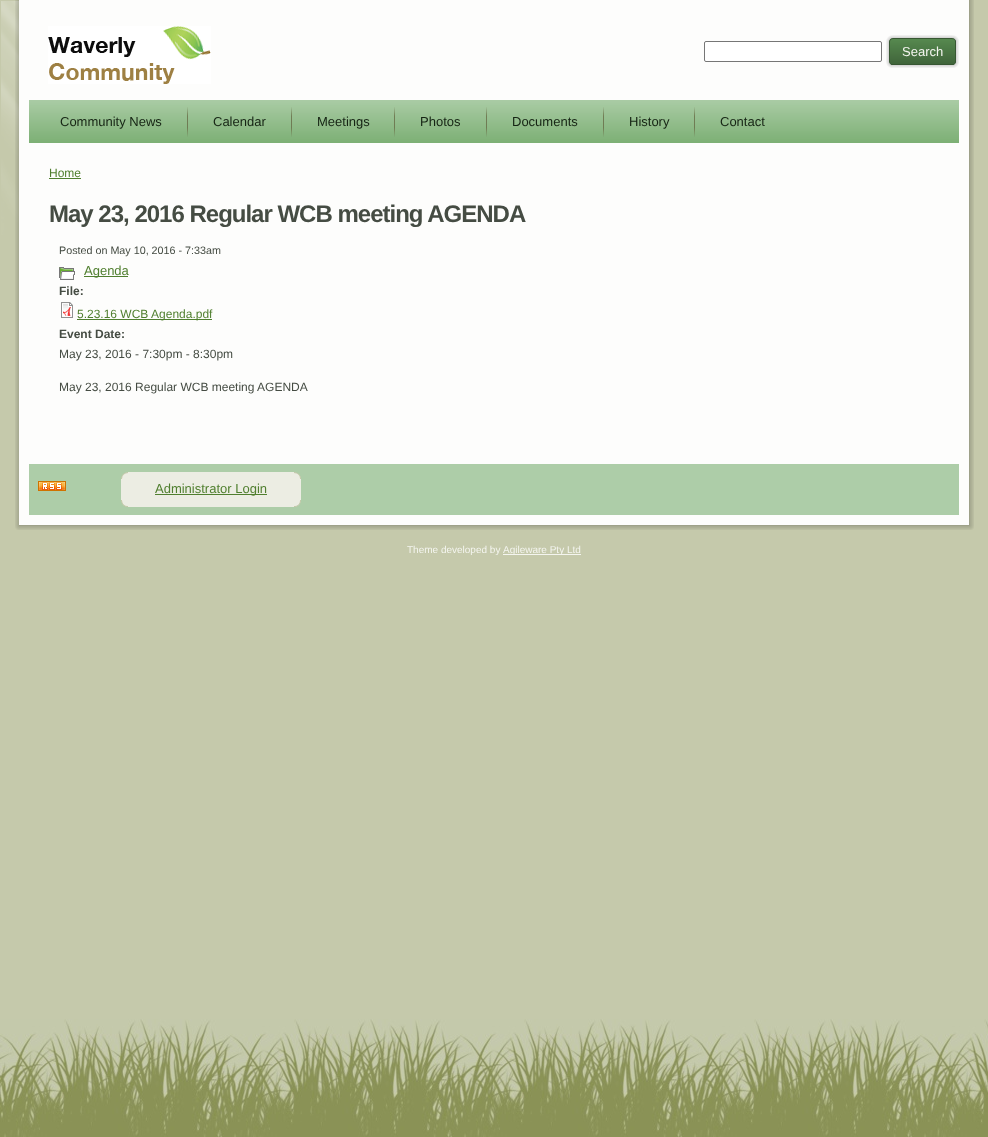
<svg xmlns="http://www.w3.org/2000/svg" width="988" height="1137">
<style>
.a{font:13px Liberation Sans;fill:#f4f5ef}
.b{font:13px Liberation Sans;fill:#162414}
.c{font:12px Liberation Sans;fill:#507f2f}
.d{font:bold 24px Liberation Sans;letter-spacing:-1px;fill:#454c43}
.e{font:10.75px Liberation Sans;fill:#454c43}
.f{font:13px Liberation Sans;fill:#507f2f}
.g{font:bold 12px Liberation Sans;fill:#454c43}
.h{font:12px Liberation Sans;fill:#454c43}
.i{font:10px Liberation Sans;fill:#f4f5ef}
</style>
<rect width="100%" height="100%" fill="#c5c9ab"/>
<image href="1.png" x="0" y="1019" width="988" height="118"/>
<image href="2.png" x="1" y="1" width="18" height="234"/>
<image href="3.png" x="15" y="0" width="20" height="6"/>
<path fill="#fdfdfc" d="M35 0h918v464H35z"/>
<image href="4.png" x="953" y="0" width="21" height="6"/>
<image href="5.png" x="15" y="6" width="20" height="503"/>
<image href="6.png" x="48" y="26" width="163" height="58"/>
<rect fill="#fff" stroke="#767676" x="704.5" y="41.5" width="177" height="20" rx="1.5"/>
<image href="7.png" x="886" y="35" width="63" height="33"/>
<image href="18.png" x="953" y="6" width="21" height="503"/>
<image href="8.png" x="949" y="35" width="10" height="33"/>
<image href="9.png" x="29" y="100" width="930" height="43"/>
<image href="10.png" x="187" y="107" width="1" height="30"/>
<image href="10.png" x="291" y="107" width="1" height="30"/>
<image href="10.png" x="394" y="107" width="1" height="30"/>
<image href="10.png" x="486" y="107" width="1" height="30"/>
<image href="10.png" x="603" y="107" width="1" height="30"/>
<image href="10.png" x="694" y="107" width="1" height="30"/>
<path fill="#507f2f" d="M49 178h32v1H49z"/>
<image href="11.png" x="59" y="267" width="16" height="13"/>
<path fill="#507f2f" d="M84 276h44v1H84z"/>
<image href="12.png" x="61" y="302" width="12" height="16"/>
<path fill="#507f2f" d="M77 319h135v1H77z"/>
<image href="19.png" x="15" y="509" width="20" height="21"/>
<image href="21.png" x="953" y="509" width="21" height="21"/>
<path fill="#adcda8" d="M29 464h930v51H29z"/>
<image href="13.png" x="38" y="481" width="28" height="10"/>
<image href="14.png" x="121" y="472" width="7" height="7"/>
<path fill="#ecede3" d="M128 472h166v7H128z"/>
<image href="15.png" x="294" y="472" width="7" height="7"/>
<path fill="#ecede3" d="M121 479h7v21H121z"/>
<path fill="#ecede3" d="M128 479h173v21H128z"/>
<path fill="#507f2f" d="M155 494h112v1H155z"/>
<image href="16.png" x="121" y="500" width="7" height="7"/>
<path fill="#ecede3" d="M128 500h166v7H128z"/>
<image href="17.png" x="294" y="500" width="7" height="7"/>
<image href="20.png" x="35" y="515" width="918" height="15"/>
<path fill="#f4f5ef" d="M503 554h78v1H503z"/>
<text class="a" x="902" y="56">Search</text>
<text class="b" x="60" y="126">Community News</text>
<text class="b" x="213" y="126">Calendar</text>
<text class="b" x="317" y="126">Meetings</text>
<text class="b" x="420" y="126">Photos</text>
<text class="b" x="512" y="126">Documents</text>
<text class="b" x="629" y="126">History</text>
<text class="b" x="720" y="126">Contact</text>
<text class="c" x="49" y="177">Home</text>
<text class="d" x="49" y="222">May 23, 2016 Regular WCB meeting AGENDA</text>
<text class="e" x="59" y="254">Posted on May 10, 2016 - 7:33am</text>
<text class="f" x="84" y="275">Agenda</text>
<text class="g" x="59" y="295">File:</text>
<text class="c" x="77" y="318">5.23.16 WCB Agenda.pdf</text>
<text class="g" x="59" y="338">Event Date:</text>
<text class="h" x="59" y="358">May 23, 2016 - 7:30pm - 8:30pm</text>
<text class="h" x="59" y="391">May 23, 2016 Regular WCB meeting AGENDA</text>
<text class="f" x="155" y="493">Administrator Login</text>
<text class="i" x="407" y="553">Theme developed by</text>
<text class="i" x="503" y="553">Agileware Pty Ltd</text>
</svg>
